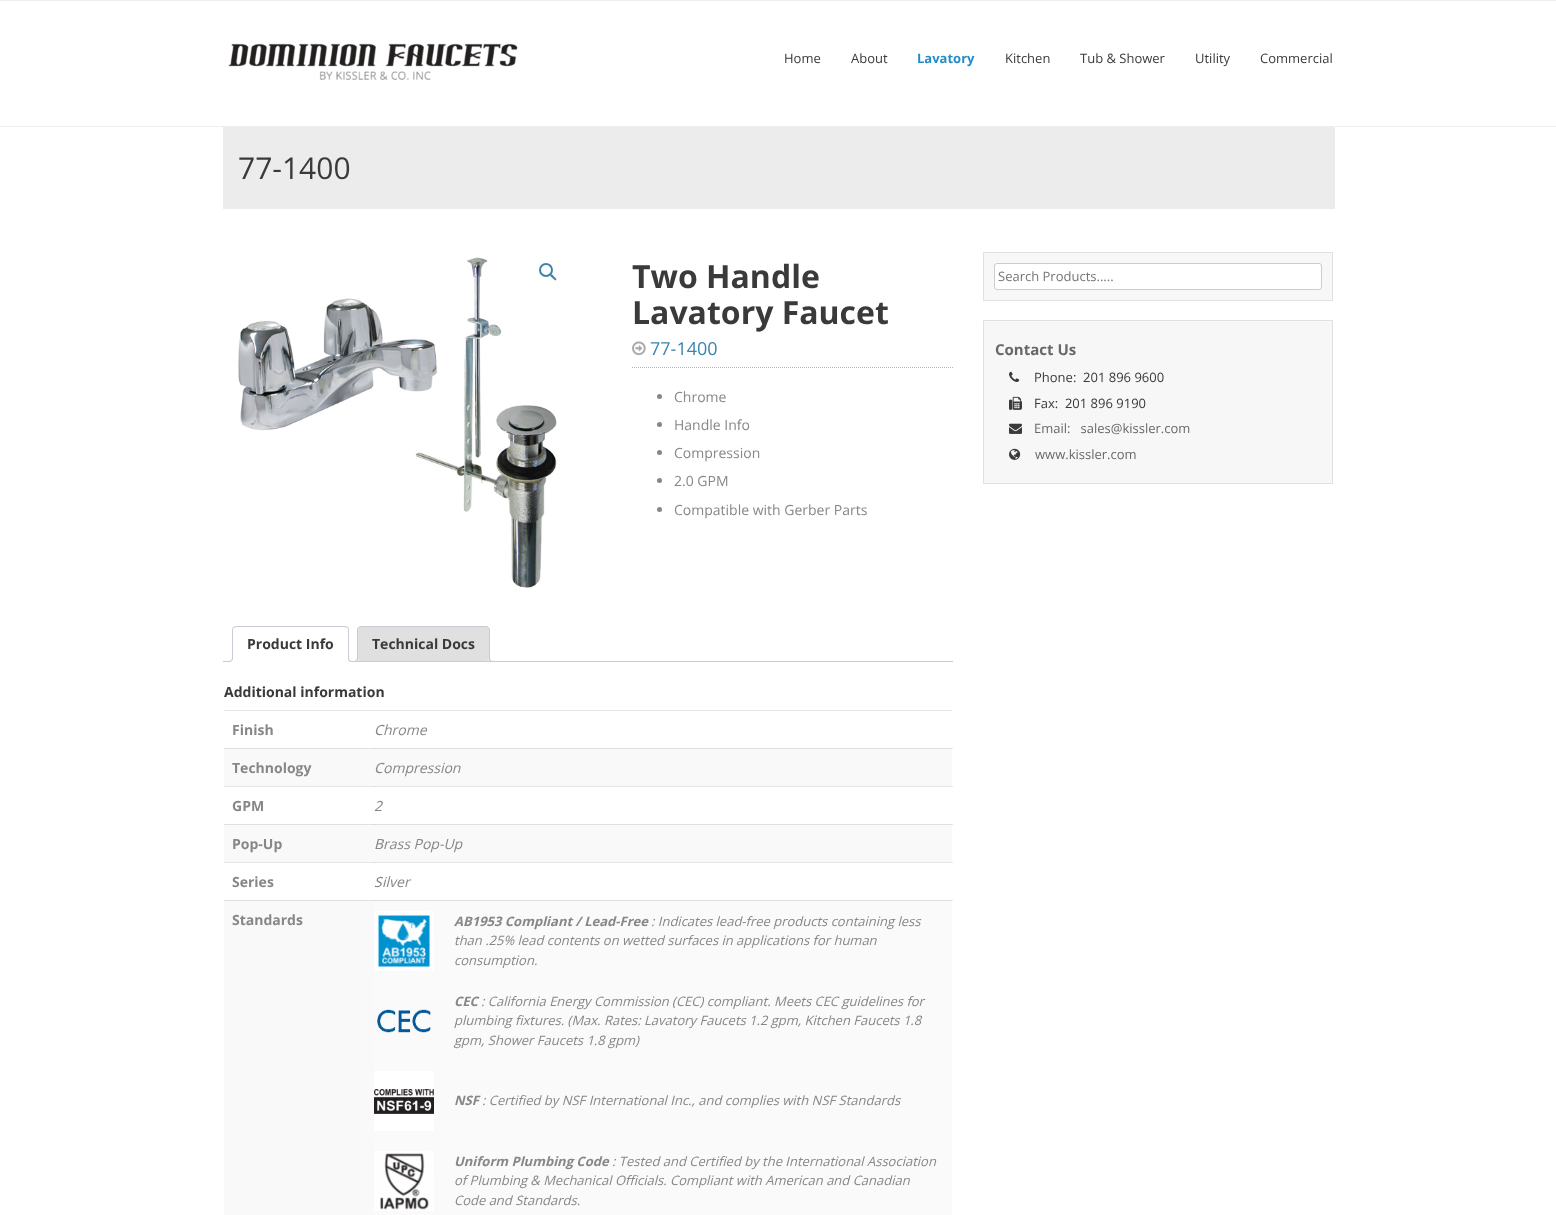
<svg xmlns="http://www.w3.org/2000/svg" width="1556" height="1215">
<style>
.a{font:13px Open Sans;fill:#3a3a3a}
.b{font:bold 13px Open Sans;fill:#238cc5}
.c{font:30px Open Sans;fill:#3a3a3a}
.d{font:bold 32px Open Sans;fill:#3a3a3a}
.e{font:18px Open Sans;fill:#3a85ae}
.f{font:14px Open Sans;fill:#878787}
.g{font:bold 14px Open Sans;fill:#3a3a3a}
.h{font:bold 14px Open Sans;fill:#878787}
.i{font:italic 14px Noto Sans;fill:#878787}
.j{font:italic 14px Open Sans;fill:#878787}
.k{font:italic bold 13px Open Sans;fill:#878787}
.l{font:italic 13px Open Sans;fill:#878787}
.m{font:13px Open Sans;fill:#757575}
.n{font:bold 15px Open Sans;fill:#686868}
.o{font:13px Open Sans;fill:#686868}
</style>
<defs>
<clipPath id="clip1"><path d="M223 626h730v36H223z"/></clipPath>
</defs>
<rect width="100%" height="100%" fill="#fff"/>
<path fill="#e6e6e6" d="M952 748h1v1H952z"/>
<path fill="#e6e6e6" d="M224 786h729v1H224z"/>
<path fill="#e6e6e6" d="M952 824h1v1H952z"/>
<path fill="#e6e6e6" d="M224 862h729v1H224z"/>
<path fill="#e6e6e6" d="M952 900h1v1H952z"/>
<path fill="#eee" d="M0 0h1556v1H0z"/>
<path fill="#eee" d="M0 126h1556v1H0z"/>
<image href="1.png" x="228" y="43" width="290" height="37"/>
<path fill="#ececec" d="M223 127h1112v82H223z"/>
<image href="2.png" x="238" y="257" width="319" height="331"/>
<circle fill="none" stroke="#3a85ae" stroke-width="2" cx="546" cy="270" r="6"/>
<path fill="#3a85ae" d="M550.5 274.5c1.5-1 3 1.5 3.5 2c.5 1 3.5 2.5 2 3.5c-1 1.5-2.5-1.5-3.5-2c-.5-.5-3-2-2-3.5z"/>
<path fill="none" stroke="#b3b3b3" stroke-dasharray="1 1" d="M632 367.5h321"/>
<image href="3.png" x="632" y="341" width="14" height="15"/>
<circle fill="#878787" cx="659.5" cy="396.5" r="2.5"/>
<circle fill="#878787" cx="659.5" cy="424.5" r="2.5"/>
<circle fill="#878787" cx="659.5" cy="452.5" r="2.5"/>
<circle fill="#878787" cx="659.5" cy="480.5" r="2.5"/>
<circle fill="#878787" cx="659.5" cy="509.5" r="2.5"/>
<path fill="#e0e0e0" stroke="#cfc8d8" d="M361 626.5h125c2 0 3.5 1.5 3.5 3.5v31.5h-132v-31.5c0-2 1.5-3.5 3.5-3.5z"/>
<g clip-path="url(#clip1)">
<path fill="#e9e6ed" d="M355 662v2c3.5 0 5-1.5 5-5h-2c-.5 1.5-1.5 2.5-3 3z"/>
</g>
<path fill="#cfc8d8" fill-rule="evenodd" d="M353 657h5c0 3.5-1.5 5-5 5zm0 0h4c0 3-1 4-4 4z"/>
<g clip-path="url(#clip1)">
<path fill="#e9e6ed" d="M487 659c0 3.5 1.5 5 5 5v-2c-1.5-.5-2.5-1.5-3-3z"/>
</g>
<path fill="#cfc8d8" fill-rule="evenodd" d="M489 657h5v5c-2.5 0-5-1-5-4zm1 0h4v4c-2 0-4-.5-4-3z"/>
<path fill="#cfc8d8" d="M223 661h730v1H223z"/>
<path fill="#fff" d="M236 626h109c2 0 4 2 4 4v32h-117v-32c0-2 2-4 4-4z"/>
<path fill="#cfc8d8" d="M236 626l-3 1l1 1l2-1h109l2 1l1-1l-3-1z"/>
<path fill="#cfc8d8" d="M349 662v-32c0-1-.5-2-1-3l-1 1c1 0 1 1 1 2v31z"/>
<path fill="#fff" d="M349 662l-1-1h-115l-1 1z"/>
<path fill="#cfc8d8" d="M232 662l1-1v-31c0-1 0-2 1-2l-1-1c-.5 1-1 2-1 3z"/>
<g clip-path="url(#clip1)">
<path fill="#fff" d="M230 662v2c3.5 0 5-1.5 5-5h-2c-.5 1.5-1.5 2.5-3 3z"/>
</g>
<path fill="#cfc8d8" fill-rule="evenodd" d="M228 657h5c0 3.5-1.5 5-5 5zm0 0h4c0 3-1 4-4 4z"/>
<g clip-path="url(#clip1)">
<path fill="#fff" d="M346 659c0 3.5 1.5 5 5 5v-2c-1.5-.5-2.5-1.5-3-3z"/>
</g>
<path fill="#cfc8d8" fill-rule="evenodd" d="M348 657h5v5c-2.5 0-5-1-5-4zm1 0h4v4c-2 0-4-.5-4-3z"/>
<path fill="#e6e6e6" d="M224 710h728v1H224z"/>
<path fill="#f9f9f9" d="M224 749h728v37H224z"/>
<path fill="#e0e0e0" d="M224 748h728v1H224z"/>
<path fill="#cacaca" d="M374 748h1v1H374z"/>
<path fill="#cfcfcf" d="M374 786h1v1H374z"/>
<path fill="#f9f9f9" d="M224 825h728v37H224z"/>
<path fill="#e0e0e0" d="M224 824h728v1H224z"/>
<path fill="#cacaca" d="M374 824h1v1H374z"/>
<path fill="#cfcfcf" d="M374 862h1v1H374z"/>
<path fill="#f9f9f9" d="M224 901h150v314H224z"/>
<path fill="#e0e0e0" d="M224 900h150v1H224z"/>
<path fill="#fafafa" d="M374 901h578v314H374z"/>
<path fill="#e1e1e1" d="M374 900h578v1H374z"/>
<path fill="#cbcbcb" d="M374 900h1v1H374z"/>
<image href="4.png" x="374" y="911" width="60" height="60"/>
<image href="5.png" x="377" y="1009" width="54" height="24"/>
<image href="6.png" x="374" y="1071" width="60" height="60"/>
<image href="7.png" x="374" y="1151" width="60" height="60"/>
<path fill="#f7f7f7" stroke="#e0e0e0" d="M983.5 252.5h349v48H983.5z"/>
<rect fill="#fff" stroke="#ccc" x="994.5" y="263.5" width="327" height="26" rx="2.5"/>
<path fill="#f7f7f7" stroke="#e0e0e0" d="M983.5 320.5h349v163H983.5z"/>
<image href="8.png" x="1009" y="371" width="11" height="11"/>
<image href="9.png" x="1009" y="396" width="13" height="14"/>
<image href="10.png" x="1009" y="423" width="13" height="11"/>
<image href="11.png" x="1009" y="448" width="12" height="12"/>
<text class="a" x="784" y="63">Home</text>
<text class="a" x="851" y="63">About</text>
<text class="b" x="917" y="63">Lavatory</text>
<text class="a" x="1005" y="63">Kitchen</text>
<text class="a" x="1080" y="63">Tub &amp; Shower</text>
<text class="a" x="1195" y="63">Utility</text>
<text class="a" x="1260" y="63">Commercial</text>
<text class="c" x="238" y="179">77-1400</text>
<text class="d" x="632" y="288">Two Handle</text>
<text class="d" x="632" y="324">Lavatory Faucet</text>
<text class="e" x="650" y="355">77-1400</text>
<text class="f" x="674" y="402">Chrome</text>
<text class="f" x="674" y="430">Handle Info</text>
<text class="f" x="674" y="458">Compression</text>
<text class="f" x="674" y="486">2.0 GPM</text>
<text class="f" x="674" y="515">Compatible with Gerber Parts</text>
<text class="g" x="247" y="649">Product Info</text>
<text class="g" x="372" y="649">Technical Docs</text>
<text class="g" x="224" y="697">Additional information</text>
<text class="h" x="232" y="735">Finish</text>
<text class="i" x="374" y="735">C</text>
<text class="j" x="383" y="735">hrome</text>
<text class="h" x="232" y="773">Technology</text>
<text class="i" x="374" y="773">C</text>
<text class="j" x="383" y="773">ompression</text>
<text class="h" x="232" y="811">GPM</text>
<text class="i" x="374" y="811">2</text>
<text class="h" x="232" y="849">Pop-Up</text>
<text class="i" x="374" y="849">B</text>
<text class="j" x="383" y="849">rass Pop-Up</text>
<text class="h" x="232" y="887">Series</text>
<text class="i" x="374" y="887">S</text>
<text class="j" x="382" y="887">ilver</text>
<text class="h" x="232" y="925">Standards</text>
<text class="k" x="454" y="926">AB1953 Compliant / Lead-Free</text>
<text class="l" x="651" y="926">: Indicates lead-free products containing less</text>
<text class="l" x="454" y="945">than .25% lead contents on wetted surfaces in applications for human</text>
<text class="l" x="454" y="965">consumption.</text>
<text class="k" x="454" y="1006">CEC</text>
<text class="l" x="481" y="1006">: California Energy Commission (CEC) compliant. Meets CEC guidelines for</text>
<text class="l" x="454" y="1025">plumbing fixtures. (Max. Rates: Lavatory Faucets 1.2 gpm, Kitchen Faucets 1.8</text>
<text class="l" x="454" y="1045">gpm, Shower Faucets 1.8 gpm)</text>
<text class="k" x="454" y="1105">NSF</text>
<text class="l" x="482" y="1105">: Certified by NSF International Inc., and complies with NSF Standards</text>
<text class="k" x="454" y="1166">Uniform Plumbing Code</text>
<text class="l" x="612" y="1166">: Tested and Certified by the International Association</text>
<text class="l" x="454" y="1185">of Plumbing &amp; Mechanical Officials. Compliant with American and Canadian</text>
<text class="l" x="454" y="1205">Code and Standards.</text>
<text class="m" x="998" y="281">Search Products.....</text>
<text class="n" x="995" y="355">Contact Us</text>
<text class="a" xml:space="preserve" x="1034" y="382">Phone:  201 896 9600</text>
<text class="a" xml:space="preserve" x="1034" y="408">Fax:  201 896 9190</text>
<text class="o" xml:space="preserve" x="1034" y="433">Email:   sales@kissler.com</text>
<text class="o" x="1035" y="459">www.kissler.com</text>
</svg>
